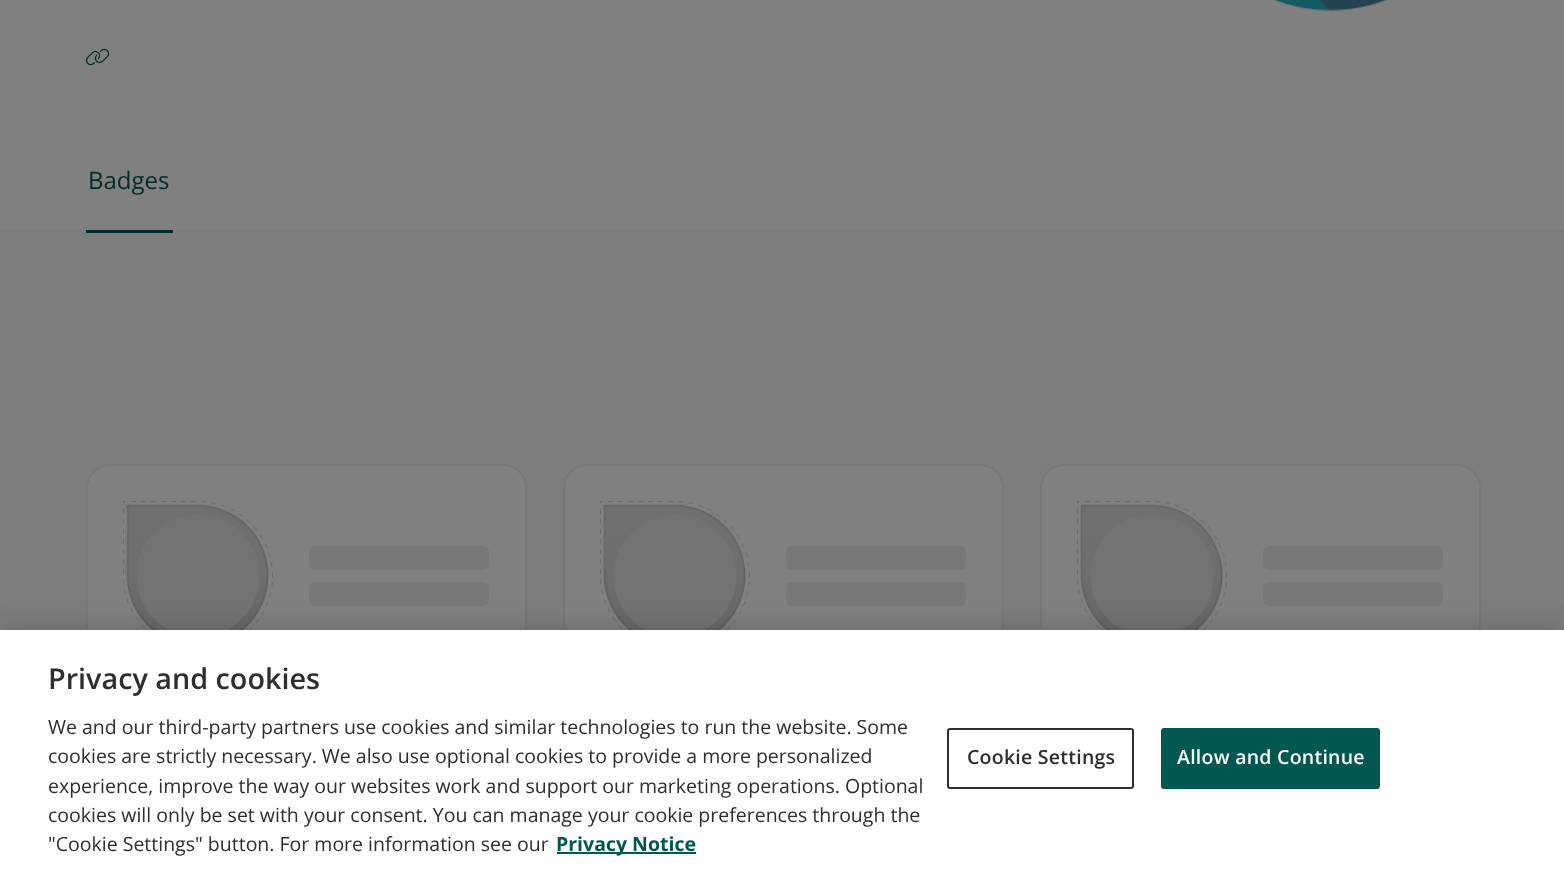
<svg xmlns="http://www.w3.org/2000/svg" width="1564" height="874">
<style>
.a{font:24px Open Sans;fill:#002c28}
.b{font:600 28.75px Open Sans;fill:#2e2e2e}
.c{font:19.5px Open Sans;fill:#2e2e2e}
.d{font:bold 19.5px Open Sans;fill:#005850}
.e{font:600 19.5px Open Sans;letter-spacing:0.25px;fill:#2e2e2e}
.f{font:600 19.5px Open Sans;letter-spacing:0.25px;fill:#fefefe}
</style>
<rect width="100%" height="100%" fill="#808080"/>
<image href="1.png" x="1273" y="0" width="115" height="12"/>
<image href="2.png" x="86" y="48" width="24" height="18"/>
<path fill="#7d7d7d" d="M0 230h1564v400H0z"/>
<path fill="#002c28" d="M86 230h87v3H86z"/>
<rect fill="#808080" stroke="#787878" stroke-width="2" x="87" y="465" width="439" height="223" rx="23"/>
<image href="3.png" x="123" y="501" width="150" height="129"/>
<rect fill="#787878" x="309" y="546" width="180" height="24" rx="6"/>
<rect fill="#787878" x="309" y="582" width="180" height="24" rx="6"/>
<rect fill="#808080" stroke="#787878" stroke-width="2" x="564" y="465" width="439" height="223" rx="23"/>
<image href="3.png" x="600" y="501" width="150" height="129"/>
<rect fill="#787878" x="786" y="546" width="180" height="24" rx="6"/>
<rect fill="#787878" x="786" y="582" width="180" height="24" rx="6"/>
<rect fill="#808080" stroke="#787878" stroke-width="2" x="1041" y="465" width="439" height="223" rx="23"/>
<image href="4.png" x="1077" y="501" width="150" height="129"/>
<rect fill="#787878" x="1263" y="546" width="180" height="24" rx="6"/>
<rect fill="#787878" x="1263" y="582" width="180" height="24" rx="6"/>
<path fill="#00000033" filter="blur(13.5px)" d="M0 630h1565v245H0z"/>
<path fill="#fff" d="M0 630h1564v244H0z"/>
<path fill="#005850" d="M557 852h139v2H557z"/>
<rect fill="none" stroke="#2e2e2e" stroke-width="2" x="948" y="729" width="185" height="59" rx="2"/>
<rect fill="#005850" stroke="#005850" stroke-width="2" x="1162" y="729" width="217" height="59" rx="2"/>
<text class="a" x="88" y="189">Badges</text>
<text class="b" x="48" y="689">Privacy and cookies</text>
<text class="c" x="48" y="734">We and our third-party partners use cookies and similar technologies to run the website. Some</text>
<text class="c" x="48" y="763">cookies are strictly necessary. We also use optional cookies to provide a more personalized</text>
<text class="c" x="48" y="793">experience, improve the way our websites work and support our marketing operations. Optional</text>
<text class="c" x="48" y="822">cookies will only be set with your consent. You can manage your cookie preferences through the</text>
<text class="c" x="48" y="851">"Cookie Settings" button. For more information see our</text>
<text class="d" x="556" y="851">Privacy Notice</text>
<text class="e" x="967" y="764">Cookie Settings</text>
<text class="f" x="1177" y="764">Allow and Continue</text>
</svg>
